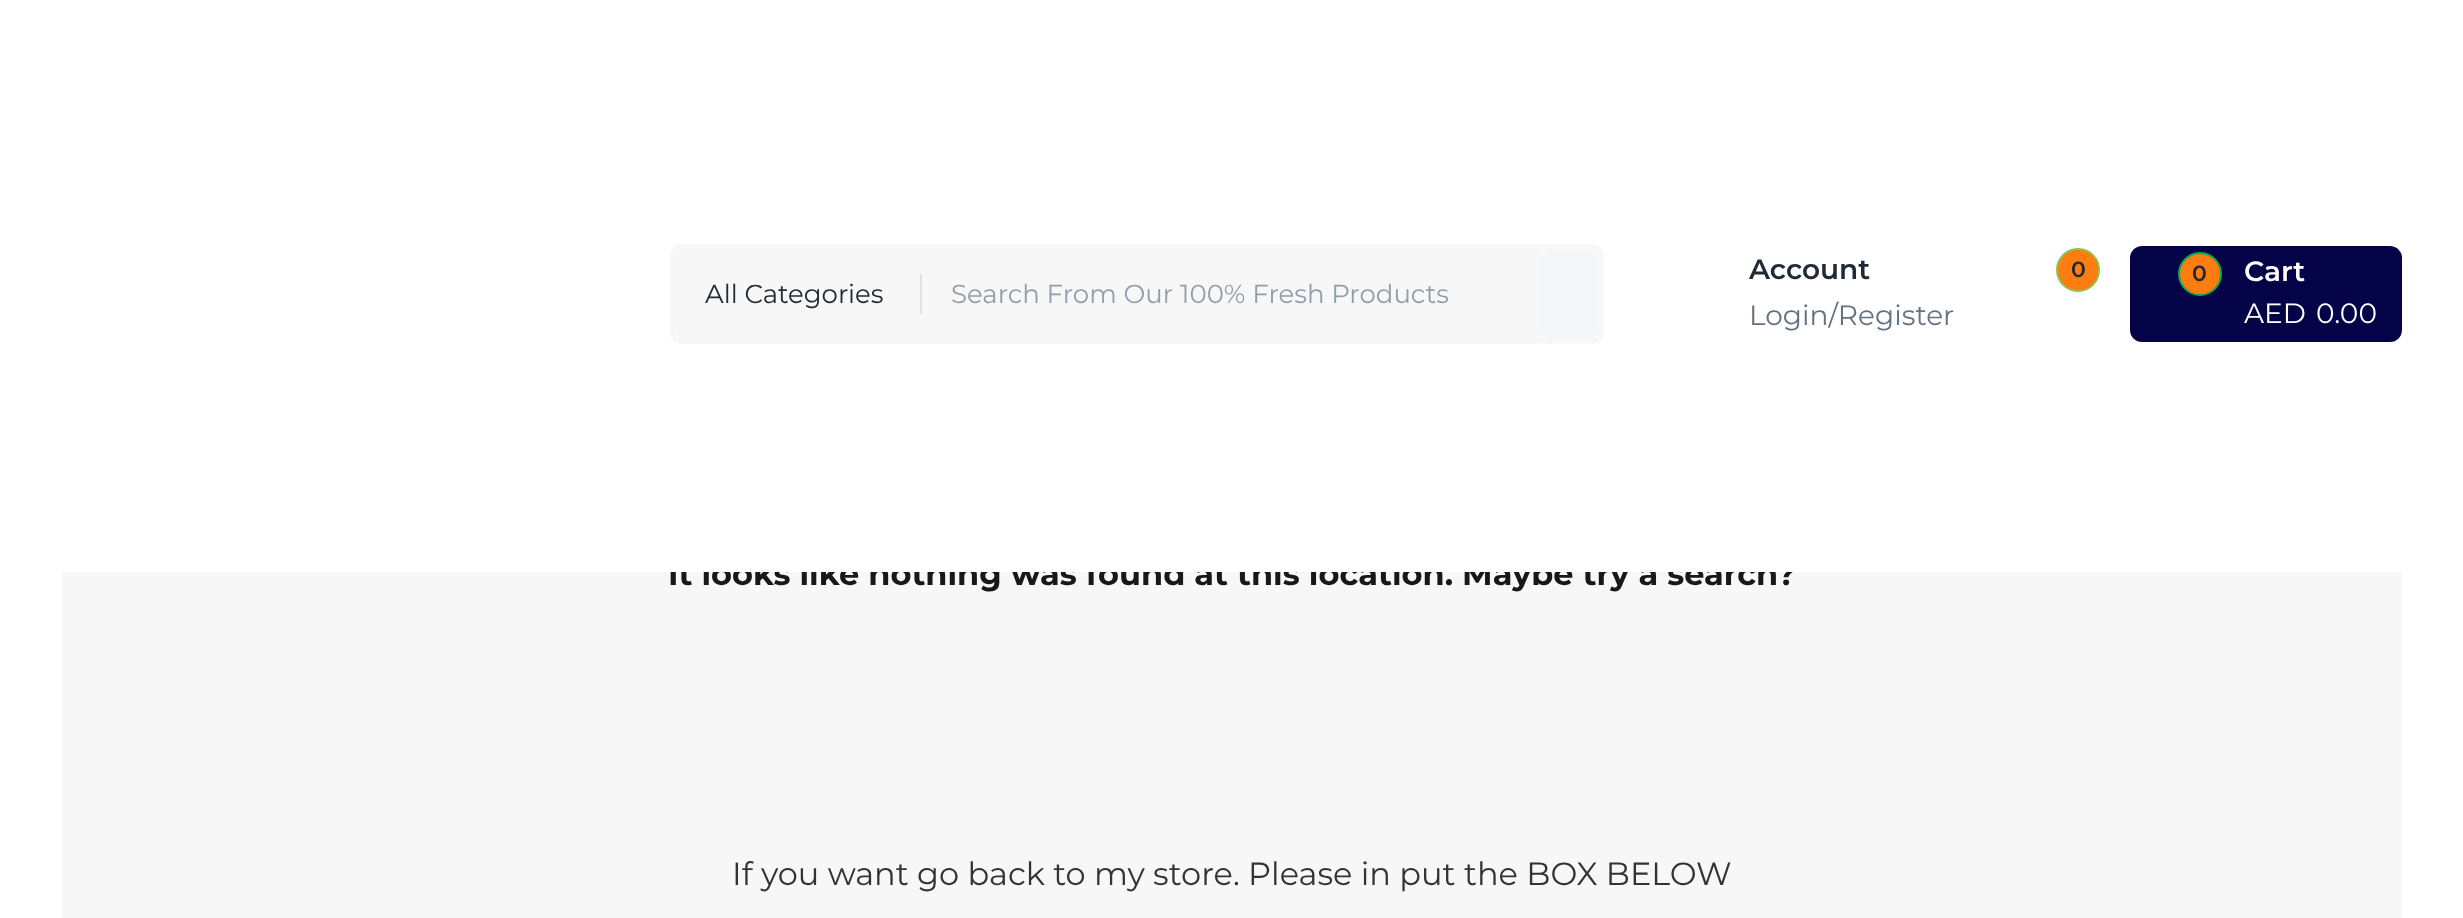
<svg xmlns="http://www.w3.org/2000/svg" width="2463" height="918">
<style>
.a{font:26px Montserrat;fill:#212b36}
.b{font:26px Montserrat;fill:#919eab}
.c{font:600 28px Montserrat;fill:#212b36}
.d{font:28px Montserrat;fill:#637381}
.e{font:600 22px Montserrat;fill:#212b36}
.f{font:600 28px Montserrat;fill:#fff}
.g{font:28px Montserrat;fill:#fff}
.h{font:bold 32px Montserrat;fill:#17181a}
.i{font:32px Montserrat;fill:#333}
</style>
<rect width="100%" height="100%" fill="#fff"/>
<rect fill="none" stroke="#f7f7f7" stroke-width="6" x="673" y="247" width="928" height="94" rx="9"/>
<path fill="#fff" d="M676 250h922v88H676z"/>
<path fill="#f7f7f7" d="M682 250h240v88h-240c-3.5 0-6-2.5-6-6v-76c0-3.5 2.5-6 6-6z"/>
<path fill="#dfe2e5" d="M920 274h2v40H920z"/>
<path fill="#f7f7f7" d="M922 250h620v88H922z"/>
<rect fill="#f4f6f8" x="1542" y="250" width="56" height="88" rx="6"/>
<circle fill="#ff7c11" stroke="#8bc34a" stroke-width="2" cx="2078" cy="270" r="21"/>
<rect fill="#040348" x="2130" y="246" width="272" height="96" rx="12"/>
<circle fill="#ff7c11" stroke="#00ab55" stroke-width="2" cx="2200" cy="274" r="21"/>
<path fill="#f7f7f7" d="M62 572h2340v346H62z"/>
<text class="a" x="705" y="303">All Categories</text>
<text class="b" x="951" y="303">Search From Our 100% Fresh Products</text>
<text class="c" x="1749" y="279">Account</text>
<text class="d" x="1749" y="325">Login/Register</text>
<text class="e" x="2071" y="277">0</text>
<text class="e" x="2192" y="281">0</text>
<text class="f" x="2244" y="281">Cart</text>
<text class="g" x="2244" y="323">AED</text>
<text class="g" x="2316" y="323">0.00</text>
<text class="h" x="668" y="585">It looks like nothing was found at this location. Maybe try a search?</text>
<path fill="#fff" d="M670 559h1125v13H670z"/>
<text class="i" x="732" y="885">If you want go back to my store. Please in put the BOX BELOW</text>
</svg>
